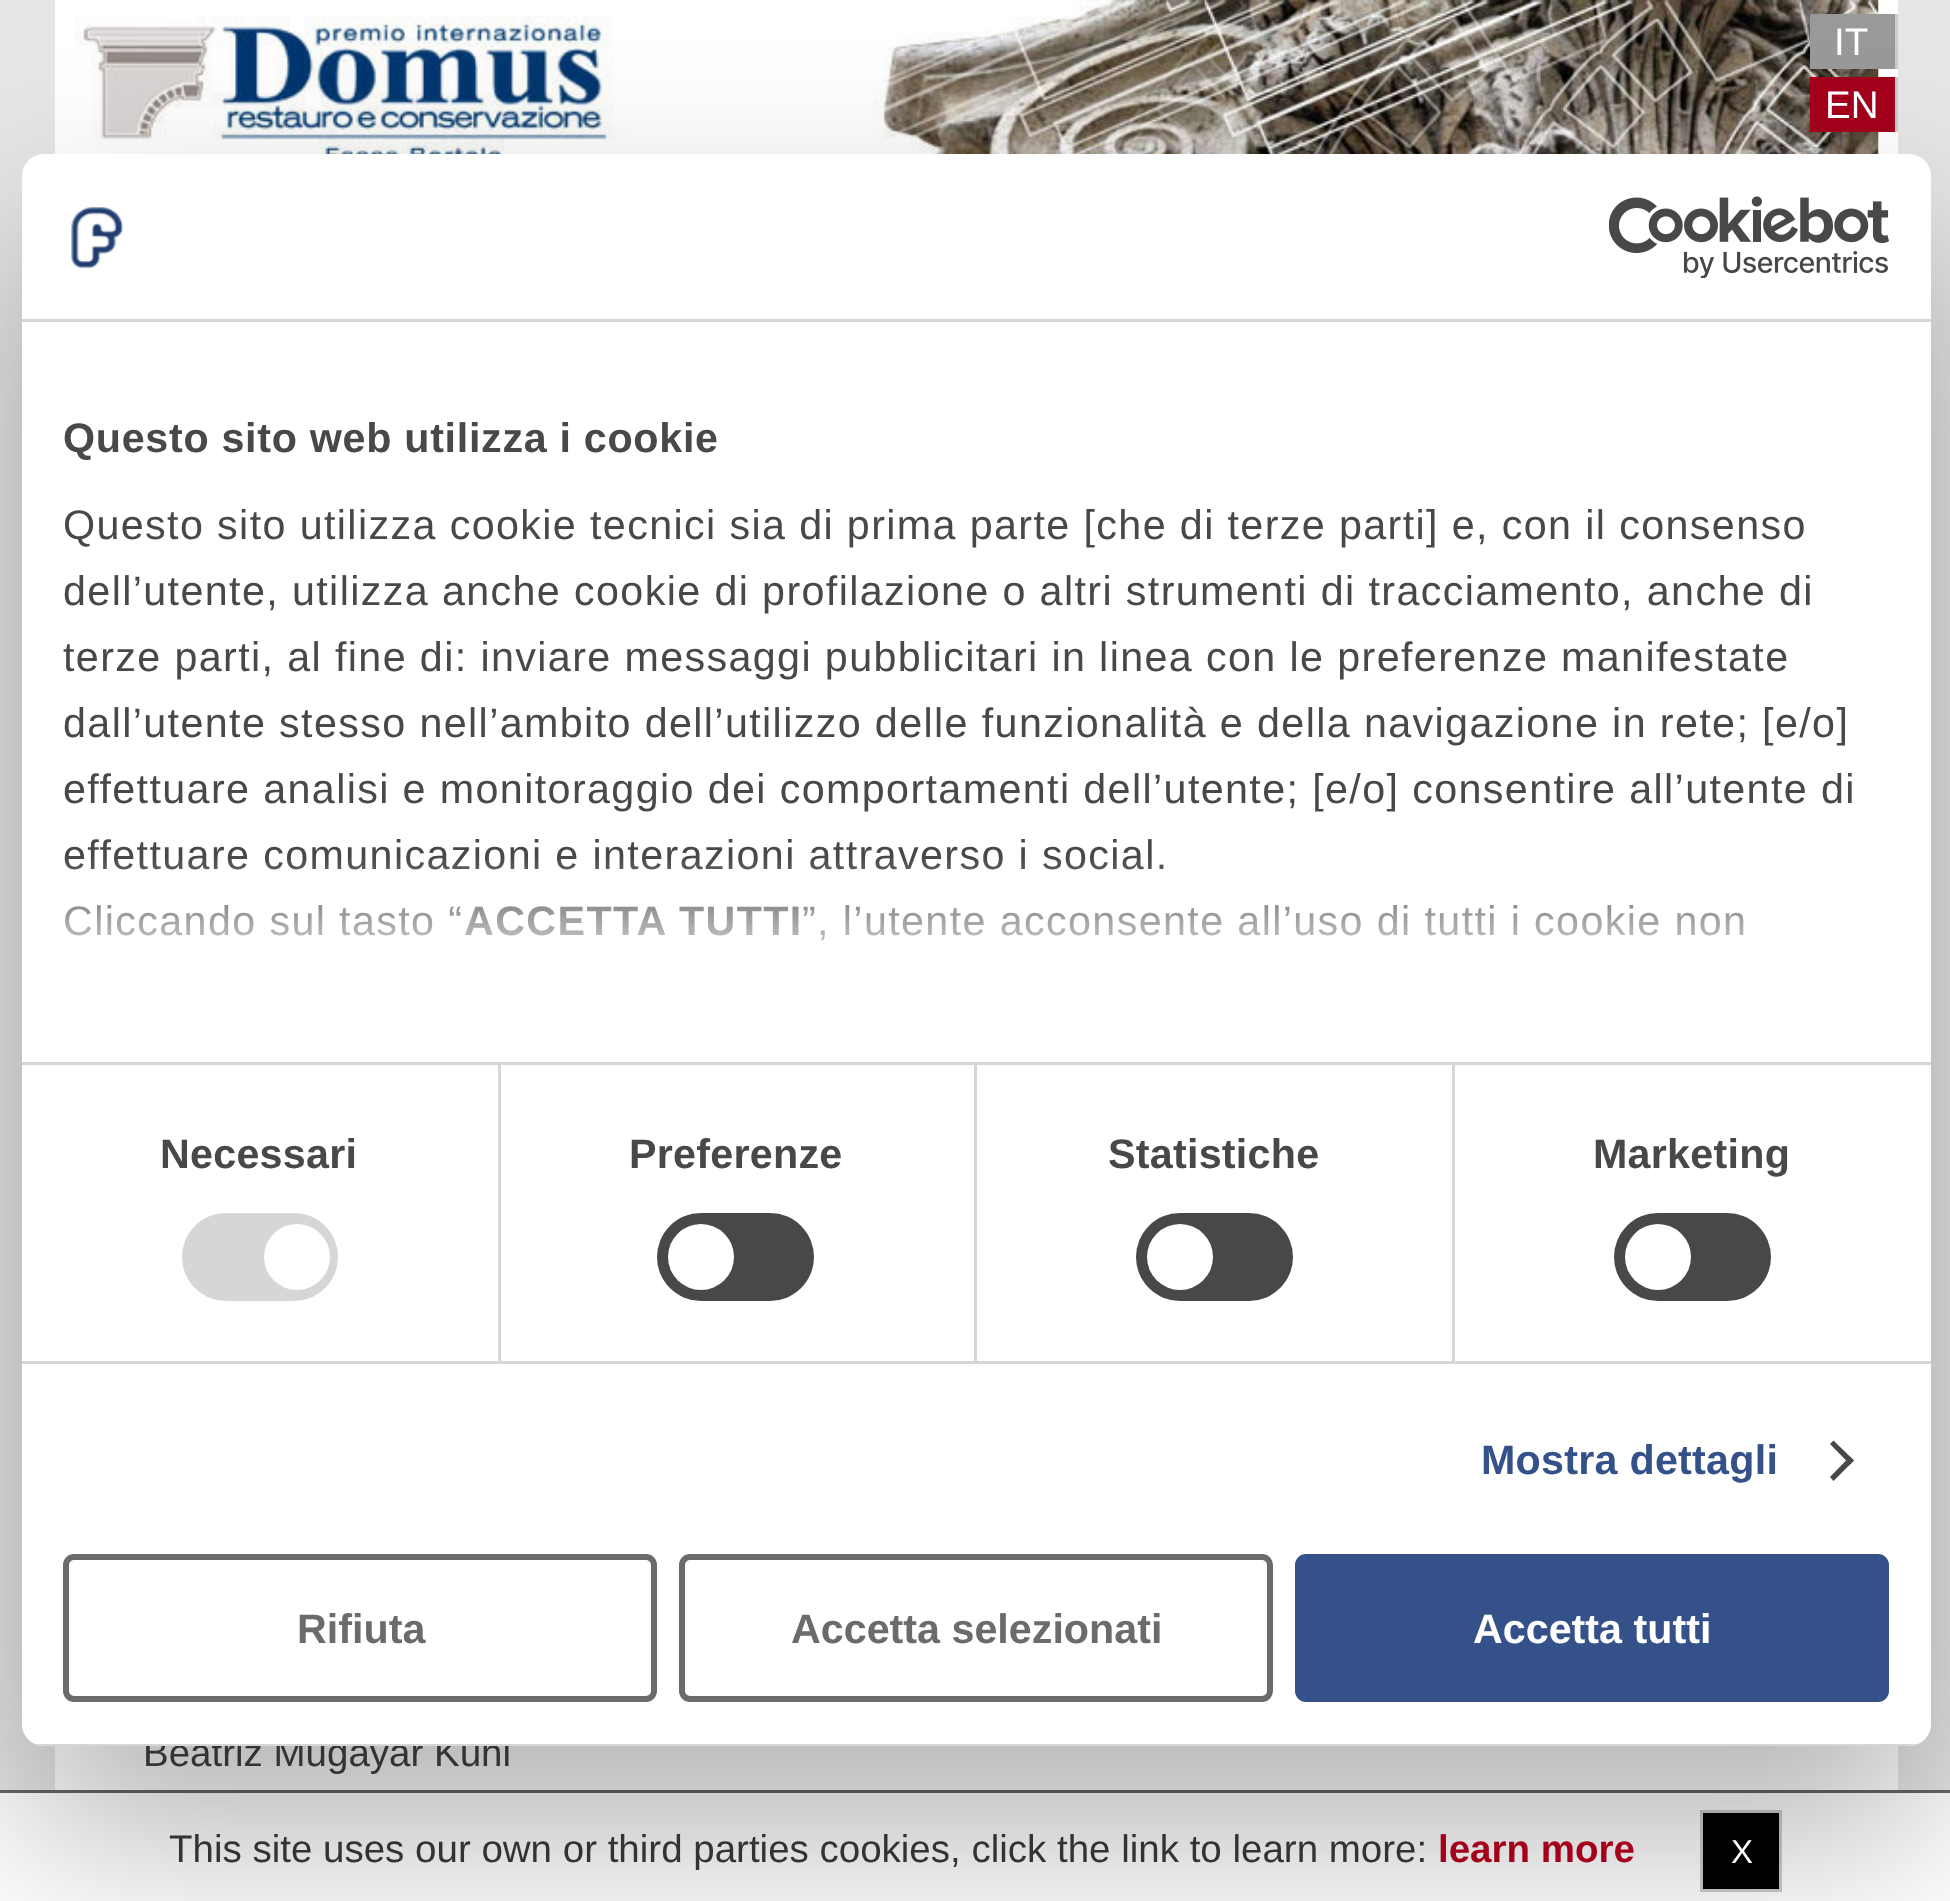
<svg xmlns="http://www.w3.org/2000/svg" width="1950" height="1901">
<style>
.a{font:38.5px Liberation Sans;fill:#fff}
.b{font:38.5px Liberation Sans;fill:#333}
.c{font:bold 41.25px Liberation Sans;letter-spacing:0.7px;fill:#484848}
.d{font:41.25px Liberation Sans;letter-spacing:1.38px;fill:#484848}
.e{font:bold 41.25px Liberation Sans;letter-spacing:1.38px;fill:#484848}
.f{font:bold 41.25px Liberation Sans;letter-spacing:0.25px;fill:#484848}
.g{font:bold 41.25px Liberation Sans;letter-spacing:0.25px;fill:#355189}
.h{font:bold 41.25px Liberation Sans;fill:#6b6b6b}
.i{font:bold 41.25px Liberation Sans;fill:#fff}
.j{font:bold 38.5px Liberation Sans;fill:#a4001b}
.k{font:33px Liberation Sans;fill:#fff}
</style>
<defs>
<clipPath id="clip1"><path d="M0 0h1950v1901h-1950zm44 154h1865c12 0 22 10 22 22v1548c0 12-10 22-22 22h-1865c-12 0-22-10-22-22v-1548c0-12 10-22 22-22z" clip-rule="evenodd"/></clipPath>
<linearGradient id="g1" gradientUnits="userSpaceOnUse" x1="958" y1="1063" x2="958" y2="856"><stop offset="0" stop-color="#fff"/><stop offset="0.5" stop-color="#fff" stop-opacity="0.8"/><stop offset="1" stop-color="#fff" stop-opacity="0"/></linearGradient>
<clipPath id="clip2"><rect x="22" y="154" width="1909" height="1592" rx="22"/></clipPath>
</defs>
<rect width="100%" height="100%" fill="#e6e6e6"/>
<path fill="#fff" d="M55 0h1843v1790H55z"/>
<image href="1.png" x="74" y="0" width="1805" height="154"/>
<path fill="#999" d="M1810 14h85v55H1810z"/>
<path fill="#ccc" d="M1895 14h3v55H1895z"/>
<path fill="#a4001b" d="M1810 77h85v55H1810z"/>
<path fill="#ccc" d="M1895 77h3v55H1895z"/>
<path fill="#fff" d="M0 1793h1950v108H0z"/>
<path fill="#666" d="M0 1790h1950v3H0z"/>
<path fill="#000" stroke="#cdcdcd" stroke-width="3" d="M1701.5 1811.5h79v79H1701.5z"/>
<g clip-path="url(#clip1)">
<rect fill="#0000004d" filter="blur(93.5px)" x="22" y="242" width="1909" height="1592" rx="22"/>
</g>
<text class="a" x="1834" y="55">IT</text>
<text class="a" x="1825" y="118">EN</text>
<text class="b" x="143" y="1766">Beatriz Mugayar Kühl</text>
<rect fill="#fff" x="22" y="154" width="1909" height="1592" rx="22"/>
<path fill="#d6d6d6" d="M22 319h1909v3H22z"/>
<image href="2.png" x="71" y="207" width="52" height="62"/>
<image href="3.png" x="1609" y="196" width="280" height="82"/>
<text class="c" x="63" y="452">Questo sito web utilizza i cookie</text>
<text class="d" x="63" y="539">Questo sito utilizza cookie tecnici sia di prima parte [che di terze parti] e, con il consenso</text>
<text class="d" x="63" y="605">dell’utente, utilizza anche cookie di profilazione o altri strumenti di tracciamento, anche di</text>
<text class="d" x="63" y="671">terze parti, al fine di: inviare messaggi pubblicitari in linea con le preferenze manifestate</text>
<text class="d" x="63" y="737">dall’utente stesso nell’ambito dell’utilizzo delle funzionalità e della navigazione in rete; [e/o]</text>
<text class="d" x="63" y="803">effettuare analisi e monitoraggio dei comportamenti dell’utente; [e/o] consentire all’utente di</text>
<text class="d" x="63" y="869">effettuare comunicazioni e interazioni attraverso i social.</text>
<text class="d" x="63" y="935">Cliccando sul tasto “</text>
<text class="e" x="464" y="935">ACCETTA TUTTI</text>
<text class="d" x="802" y="935">”, l’utente acconsente all’uso di tutti i cookie non</text>
<path fill="url(#g1)" d="M65 859h1679v82H65z"/>
<path fill="#d6d6d6" d="M22 1361h1909v3H22z"/>
<path fill="#d6d6d6" d="M498 1064h3v297H498z"/>
<text class="f" x="160" y="1168">Necessari</text>
<rect fill="#d6d6d6" x="182" y="1213" width="156" height="88" rx="44"/>
<circle fill="#fff" cx="297" cy="1257" r="33"/>
<path fill="#d6d6d6" d="M974 1064h3v297H974z"/>
<text class="f" x="629" y="1168">Preferenze</text>
<rect fill="#484848" x="657" y="1213" width="157" height="88" rx="44"/>
<circle fill="#fff" cx="701" cy="1257" r="33"/>
<path fill="#d6d6d6" d="M1452 1064h3v297H1452z"/>
<path fill="#d6d6d6" d="M22 1062h1909v3H22z"/>
<text class="f" x="1108" y="1168">Statistiche</text>
<rect fill="#484848" x="1136" y="1213" width="157" height="88" rx="44"/>
<circle fill="#fff" cx="1180" cy="1257" r="33"/>
<text class="f" x="1593" y="1168">Marketing</text>
<rect fill="#484848" x="1614" y="1213" width="157" height="88" rx="44"/>
<circle fill="#fff" cx="1658" cy="1257" r="33"/>
<text class="g" x="1481" y="1474">Mostra dettagli</text>
<path fill="#484848" d="M1833.5 1440.5l20.5 20l-4 4l-20-20.5z"/>
<path fill="#484848" d="M1850 1456.5l4 4l-20.5 20.5l-3.5-4z"/>
<g clip-path="url(#clip2)">
<path fill="#d6d6d6" d="M35 1744h1883v2H35z"/>
</g>
<rect fill="none" stroke="#6b6b6b" stroke-width="6" x="66" y="1557" width="588" height="142" rx="8"/>
<text class="h" x="297" y="1643">Rifiuta</text>
<rect fill="none" stroke="#6b6b6b" stroke-width="6" x="682" y="1557" width="588" height="142" rx="8"/>
<text class="h" x="791" y="1643">Accetta selezionati</text>
<rect fill="#355189" stroke="#355189" stroke-width="6" x="1298" y="1557" width="588" height="142" rx="8"/>
<text class="i" x="1473" y="1643">Accetta tutti</text>
<text class="b" x="169" y="1862">This site uses our own or third parties cookies, click the link to learn more:</text>
<text class="j" x="1438" y="1862">learn more</text>
<text class="k" x="1731" y="1863">X</text>
</svg>
